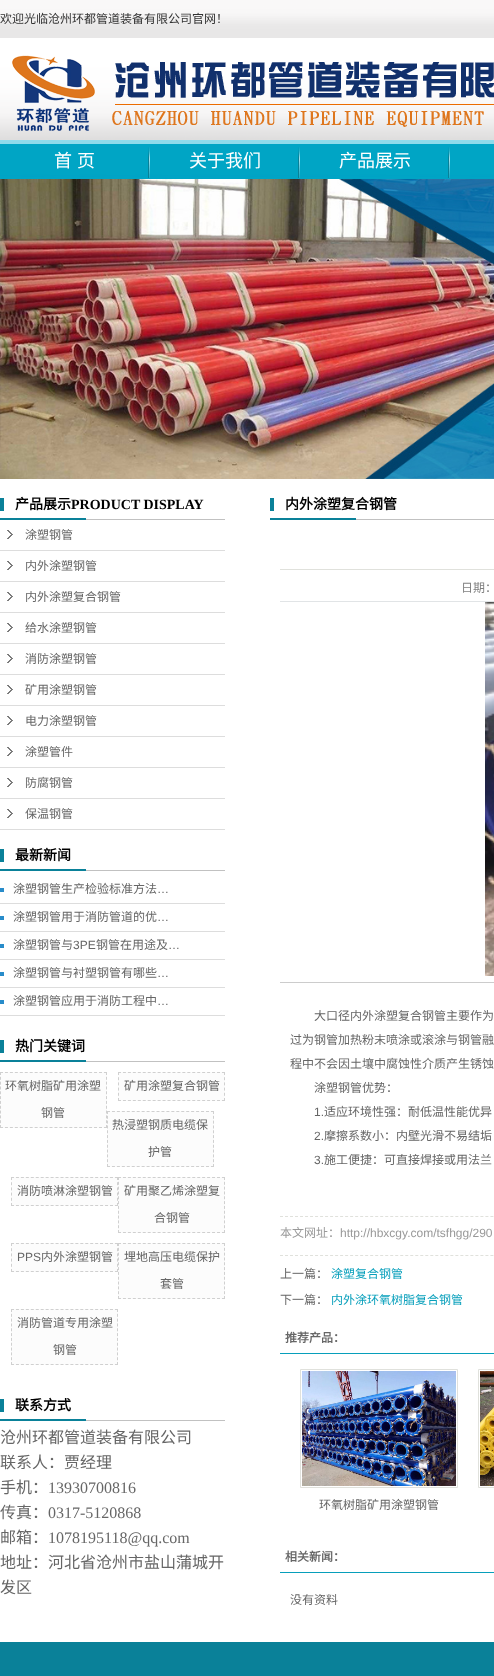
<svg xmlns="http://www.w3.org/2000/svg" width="494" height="1676">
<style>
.a{font:12px Noto Sans CJK SC;fill:#333}
.b{font:18px Noto Sans CJK SC;fill:#fff}
.c{font:bold 14px Noto Sans CJK SC;fill:#000}
.d{font:bold 14px Liberation Serif;fill:#000}
.e{font:12px Noto Sans CJK SC;fill:#666}
.f{font:12px Liberation Sans;fill:#666}
.g{font:16px Noto Sans CJK SC;fill:#666}
.h{font:16px Liberation Serif;fill:#666}
.i{font:12px Noto Sans CJK SC;fill:#808080}
.j{font:12px Noto Sans CJK SC;fill:#999}
.k{font:12px Liberation Sans;fill:#999}
.l{font:12px Noto Sans CJK SC;fill:#079fbb}
.m{font:bold 12px Noto Sans CJK SC;fill:#666}
</style>
<rect width="100%" height="100%" fill="#fff"/>
<image href="1.png" x="0" y="0" width="494" height="140"/>
<image href="2.png" x="12" y="55" width="482" height="76"/>
<image href="3.png" x="0" y="140" width="494" height="39"/>
<image href="4.png" x="148" y="147" width="2" height="31"/>
<image href="4.png" x="298" y="147" width="2" height="31"/>
<image href="4.png" x="448" y="147" width="2" height="31"/>
<image href="5.png" x="0" y="179" width="494" height="300"/>
<image href="6.png" x="0" y="498" width="225" height="22"/>
<image href="7.png" x="7" y="530" width="6" height="9"/>
<path fill="#ddd" d="M0 550h225v1H0z"/>
<image href="7.png" x="7" y="561" width="6" height="9"/>
<path fill="#ddd" d="M0 581h225v1H0z"/>
<image href="7.png" x="7" y="592" width="6" height="9"/>
<path fill="#ddd" d="M0 612h225v1H0z"/>
<image href="7.png" x="7" y="623" width="6" height="9"/>
<path fill="#ddd" d="M0 643h225v1H0z"/>
<image href="7.png" x="7" y="654" width="6" height="9"/>
<path fill="#ddd" d="M0 674h225v1H0z"/>
<image href="7.png" x="7" y="685" width="6" height="9"/>
<path fill="#ddd" d="M0 705h225v1H0z"/>
<image href="7.png" x="7" y="716" width="6" height="9"/>
<path fill="#ddd" d="M0 736h225v1H0z"/>
<image href="7.png" x="7" y="747" width="6" height="9"/>
<path fill="#ddd" d="M0 767h225v1H0z"/>
<image href="7.png" x="7" y="778" width="6" height="9"/>
<path fill="#ddd" d="M0 798h225v1H0z"/>
<image href="7.png" x="7" y="809" width="6" height="9"/>
<path fill="#ddd" d="M0 829h225v1H0z"/>
<image href="6.png" x="0" y="849" width="225" height="22"/>
<image href="8.png" x="0" y="888" width="4" height="4"/>
<path fill="#ddd" d="M0 903h225v1H0z"/>
<image href="8.png" x="0" y="916" width="4" height="4"/>
<path fill="#ddd" d="M0 931h225v1H0z"/>
<image href="8.png" x="0" y="944" width="4" height="4"/>
<path fill="#ddd" d="M0 959h225v1H0z"/>
<image href="8.png" x="0" y="972" width="4" height="4"/>
<path fill="#ddd" d="M0 987h225v1H0z"/>
<image href="8.png" x="0" y="1000" width="4" height="4"/>
<path fill="#ddd" d="M0 1015h225v1H0z"/>
<image href="6.png" x="0" y="1040" width="225" height="22"/>
<path fill="#fcfcfc" d="M0 1072h107v56H0z"/>
<path fill="none" stroke="#d0d0d0" stroke-dasharray="3 1.95" d="M0 1072.5h107"/>
<path fill="none" stroke="#d0d0d0" stroke-dasharray="3 1.82" d="M106.5 1072v56"/>
<path fill="none" stroke="#d0d0d0" stroke-dasharray="3 1.95" d="M0 1127.5h107"/>
<path fill="none" stroke="#d0d0d0" stroke-dasharray="3 1.82" d="M.5 1072v56"/>
<path fill="#fcfcfc" d="M118 1072h107v29H118z"/>
<path fill="none" stroke="#d0d0d0" stroke-dasharray="3 1.95" d="M118 1072.5h107"/>
<path fill="none" stroke="#d0d0d0" stroke-dasharray="3 2.2" d="M224.5 1072v29"/>
<path fill="none" stroke="#d0d0d0" stroke-dasharray="3 1.95" d="M118 1100.5h107"/>
<path fill="none" stroke="#d0d0d0" stroke-dasharray="3 2.2" d="M118.5 1072v29"/>
<path fill="#fcfcfc" d="M107 1111h107v56H107z"/>
<path fill="none" stroke="#d0d0d0" stroke-dasharray="3 1.95" d="M107 1111.5h107"/>
<path fill="none" stroke="#d0d0d0" stroke-dasharray="3 1.82" d="M213.5 1111v56"/>
<path fill="none" stroke="#d0d0d0" stroke-dasharray="3 1.95" d="M107 1166.5h107"/>
<path fill="none" stroke="#d0d0d0" stroke-dasharray="3 1.82" d="M107.5 1111v56"/>
<path fill="#fcfcfc" d="M11 1177h107v29H11z"/>
<path fill="none" stroke="#d0d0d0" stroke-dasharray="3 1.95" d="M11 1177.5h107"/>
<path fill="none" stroke="#d0d0d0" stroke-dasharray="3 2.2" d="M117.5 1177v29"/>
<path fill="none" stroke="#d0d0d0" stroke-dasharray="3 1.95" d="M11 1205.5h107"/>
<path fill="none" stroke="#d0d0d0" stroke-dasharray="3 2.2" d="M11.5 1177v29"/>
<path fill="#fcfcfc" d="M118 1177h107v56H118z"/>
<path fill="none" stroke="#d0d0d0" stroke-dasharray="3 1.95" d="M118 1177.5h107"/>
<path fill="none" stroke="#d0d0d0" stroke-dasharray="3 1.82" d="M224.5 1177v56"/>
<path fill="none" stroke="#d0d0d0" stroke-dasharray="3 1.95" d="M118 1232.5h107"/>
<path fill="none" stroke="#d0d0d0" stroke-dasharray="3 1.82" d="M118.5 1177v56"/>
<path fill="#fcfcfc" d="M11 1243h107v29H11z"/>
<path fill="none" stroke="#d0d0d0" stroke-dasharray="3 1.95" d="M11 1243.5h107"/>
<path fill="none" stroke="#d0d0d0" stroke-dasharray="3 2.2" d="M117.5 1243v29"/>
<path fill="none" stroke="#d0d0d0" stroke-dasharray="3 1.95" d="M11 1271.5h107"/>
<path fill="none" stroke="#d0d0d0" stroke-dasharray="3 2.2" d="M11.5 1243v29"/>
<path fill="#fcfcfc" d="M118 1243h107v56H118z"/>
<path fill="none" stroke="#d0d0d0" stroke-dasharray="3 1.95" d="M118 1243.5h107"/>
<path fill="none" stroke="#d0d0d0" stroke-dasharray="3 1.82" d="M224.5 1243v56"/>
<path fill="none" stroke="#d0d0d0" stroke-dasharray="3 1.95" d="M118 1298.5h107"/>
<path fill="none" stroke="#d0d0d0" stroke-dasharray="3 1.82" d="M118.5 1243v56"/>
<path fill="#fcfcfc" d="M11 1309h107v56H11z"/>
<path fill="none" stroke="#d0d0d0" stroke-dasharray="3 1.95" d="M11 1309.5h107"/>
<path fill="none" stroke="#d0d0d0" stroke-dasharray="3 1.82" d="M117.5 1309v56"/>
<path fill="none" stroke="#d0d0d0" stroke-dasharray="3 1.95" d="M11 1364.5h107"/>
<path fill="none" stroke="#d0d0d0" stroke-dasharray="3 1.82" d="M11.5 1309v56"/>
<image href="6.png" x="0" y="1399" width="225" height="22"/>
<image href="9.png" x="270" y="498" width="224" height="22"/>
<path fill="#e0e1dc" d="M280 569h214v1H280z"/>
<path fill="#e1e4e6" d="M280 601h214v1H280z"/>
<image href="10.png" x="485" y="602" width="9" height="374"/>
<path fill="#ccc" d="M280 982h214v1H280z"/>
<path fill="none" stroke="#e0e1dc" stroke-dasharray="3 2.01" d="M280 1216.5h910"/>
<path fill="none" stroke="#e0e1dc" stroke-dasharray="3 2.01" d="M280 1255.5h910"/>
<path fill="#079fbb" d="M280 1353h214v1H280z"/>
<path fill="none" stroke="#e0e1dc" d="M478.5 1369.5h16v118H478.5z"/>
<image href="11.png" x="480" y="1371" width="14" height="115"/>
<path fill="none" stroke="#e0e1dc" d="M300.5 1369.5h157v118H300.5z"/>
<image href="12.png" x="302" y="1371" width="154" height="115"/>
<path fill="#079fbb" d="M280 1572h214v1H280z"/>
<path fill="#0a8199" d="M0 1642h494v34H0z"/>
<text class="a" x="0" y="23">欢迎光临沧州环都管道装备有限公司官网！</text>
<text class="b" x="54" y="167">首</text>
<text class="b" x="77" y="167">页</text>
<text class="b" x="189" y="167">关于我们</text>
<text class="b" x="339" y="167">产品展示</text>
<text class="c" x="15" y="509">产品展示</text>
<text class="d" x="71" y="509">PRODUCT DISPLAY</text>
<text class="e" x="25" y="539">涂塑钢管</text>
<text class="e" x="25" y="570">内外涂塑钢管</text>
<text class="e" x="25" y="601">内外涂塑复合钢管</text>
<text class="e" x="25" y="632">给水涂塑钢管</text>
<text class="e" x="25" y="663">消防涂塑钢管</text>
<text class="e" x="25" y="694">矿用涂塑钢管</text>
<text class="e" x="25" y="725">电力涂塑钢管</text>
<text class="e" x="25" y="756">涂塑管件</text>
<text class="e" x="25" y="787">防腐钢管</text>
<text class="e" x="25" y="818">保温钢管</text>
<text class="c" x="15" y="860">最新新闻</text>
<text class="e" x="13" y="893">涂塑钢管生产检验标准方法</text>
<text class="f" x="157" y="893">…</text>
<text class="e" x="13" y="921">涂塑钢管用于消防管道的优</text>
<text class="f" x="157" y="921">…</text>
<text class="e" x="13" y="949">涂塑钢管与</text>
<text class="f" x="73" y="949">3PE</text>
<text class="e" x="96" y="949">钢管在用途及</text>
<text class="f" x="168" y="949">…</text>
<text class="e" x="13" y="977">涂塑钢管与衬塑钢管有哪些</text>
<text class="f" x="157" y="977">…</text>
<text class="e" x="13" y="1005">涂塑钢管应用于消防工程中</text>
<text class="f" x="157" y="1005">…</text>
<text class="c" x="15" y="1051">热门关键词</text>
<text class="e" x="5" y="1090">环氧树脂矿用涂塑</text>
<text class="e" x="41" y="1117">钢管</text>
<text class="e" x="124" y="1090">矿用涂塑复合钢管</text>
<text class="e" x="112" y="1129">热浸塑钢质电缆保</text>
<text class="e" x="148" y="1156">护管</text>
<text class="e" x="17" y="1195">消防喷淋涂塑钢管</text>
<text class="e" x="124" y="1195">矿用聚乙烯涂塑复</text>
<text class="e" x="154" y="1222">合钢管</text>
<text class="f" x="17" y="1261">PPS</text>
<text class="e" x="41" y="1261">内外涂塑钢管</text>
<text class="e" x="124" y="1261">埋地高压电缆保护</text>
<text class="e" x="160" y="1288">套管</text>
<text class="e" x="17" y="1327">消防管道专用涂塑</text>
<text class="e" x="53" y="1354">钢管</text>
<text class="c" x="15" y="1410">联系方式</text>
<text class="g" x="0" y="1443">沧州环都管道装备有限公司</text>
<text class="g" x="0" y="1468">联系人：贾经理</text>
<text class="g" x="0" y="1493">手机：</text>
<text class="h" x="48" y="1493">13930700816</text>
<text class="g" x="0" y="1518">传真：</text>
<text class="h" x="48" y="1518">0317-5120868</text>
<text class="g" x="0" y="1543">邮箱：</text>
<text class="h" x="48" y="1543">1078195118@qq.com</text>
<text class="g" x="0" y="1568">地址：河北省沧州市盐山蒲城开</text>
<text class="g" x="0" y="1593">发区</text>
<text class="c" x="285" y="509">内外涂塑复合钢管</text>
<text class="i" x="461" y="592">日期：</text>
<text class="e" x="314" y="1020">大口径内外涂塑复合钢管主要作为</text>
<text class="e" x="290" y="1044">过为钢管加热粉末喷涂或滚涂与钢管融</text>
<text class="e" x="290" y="1068">程中不会因土壤中腐蚀性介质产生锈蚀</text>
<text class="e" x="314" y="1092">涂塑钢管优势：</text>
<text class="f" x="314" y="1116">1.</text>
<text class="e" x="324" y="1116">适应环境性强：耐低温性能优异</text>
<text class="f" x="314" y="1140">2.</text>
<text class="e" x="324" y="1140">摩擦系数小：内壁光滑不易结垢</text>
<text class="f" x="314" y="1164">3.</text>
<text class="e" x="324" y="1164">施工便捷：可直接焊接或用法兰</text>
<text class="j" x="280" y="1237">本文网址：</text>
<text class="k" x="340" y="1237">http://hbxcgy.com/tsfhgg/290</text>
<text class="e" x="280" y="1278">上一篇：</text>
<text class="l" x="331" y="1278">涂塑复合钢管</text>
<text class="e" x="280" y="1304">下一篇：</text>
<text class="l" x="331" y="1304">内外涂环氧树脂复合钢管</text>
<text class="m" x="285" y="1342">推荐产品：</text>
<text class="e" x="319" y="1509">环氧树脂矿用涂塑钢管</text>
<text class="m" x="285" y="1561">相关新闻：</text>
<text class="e" x="290" y="1604">没有资料</text>
</svg>
